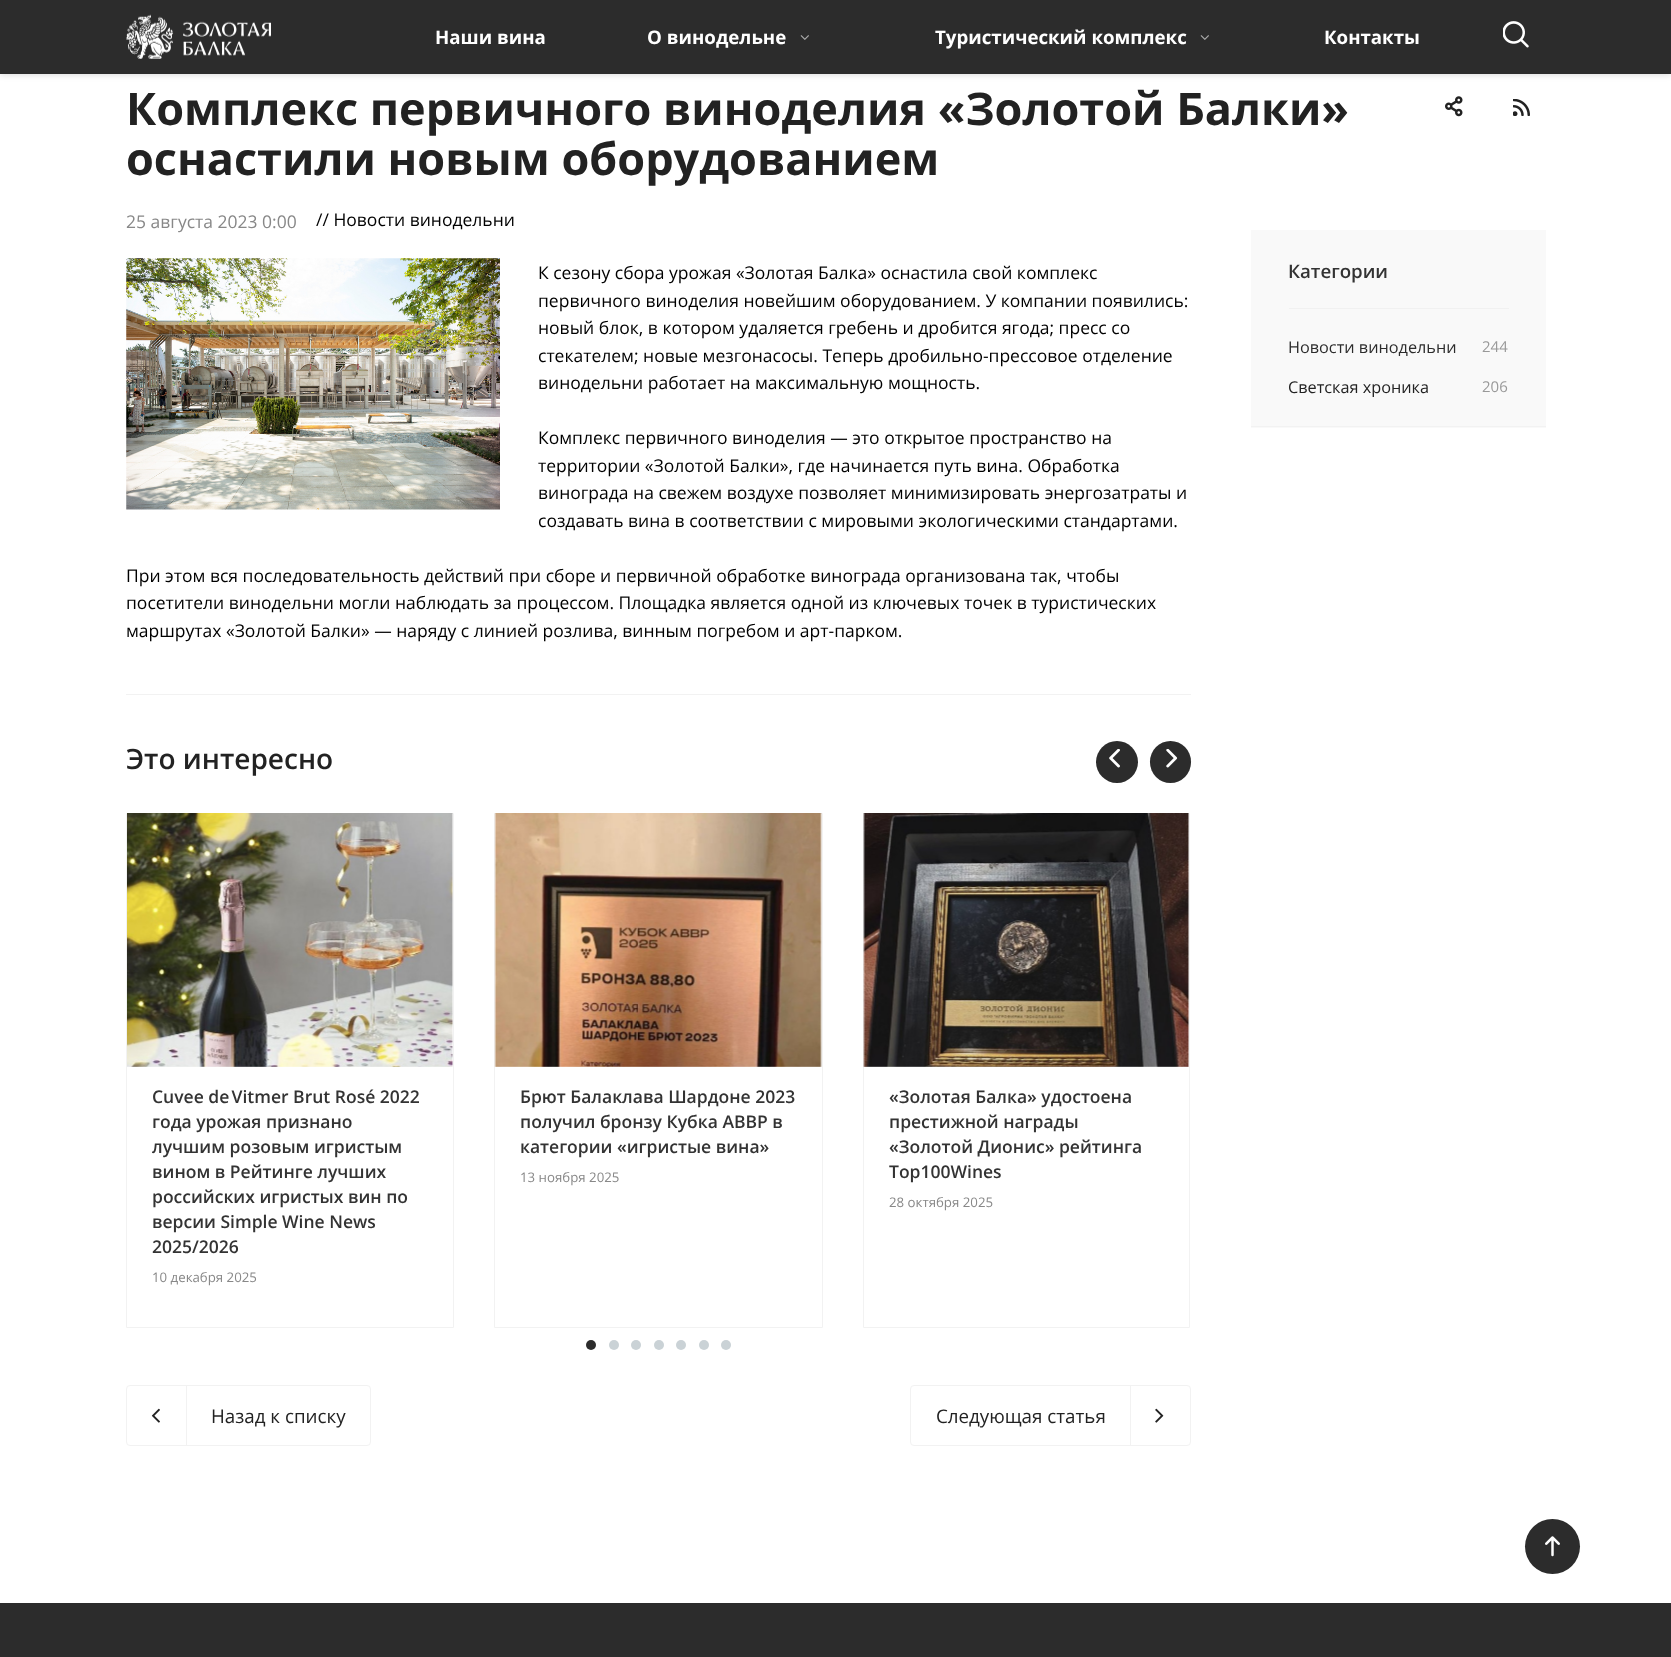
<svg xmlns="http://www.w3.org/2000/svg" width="1671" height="1657">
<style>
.a{font:bold 18.7px Open Sans;fill:#fff}
.b{font:bold 45px Open Sans;fill:#222}
.c{font:17.5px Open Sans;fill:#888}
.d{font:17.5px Open Sans;fill:#000}
.e{font:600 28px Open Sans;fill:#222}
.f{font:600 17.5px Open Sans;fill:#333}
.g{font:13.25px Open Sans;fill:#888}
.h{font:18.75px Open Sans;fill:#222}
.i{font:600 18.7px Open Sans;fill:#333}
.j{font:16.25px Open Sans;fill:#2c2c2c}
.k{font:15px Open Sans;fill:#999}
.l{font:16.25px Open Sans;fill:#222}
</style>
<rect width="100%" height="100%" fill="#fff"/>
<path fill="#00000024" filter="blur(3px)" d="M0 1h1671v74H0z"/>
<path fill="#2c2c2c" d="M0 0h1671v74H0z"/>
<image href="1.png" x="126" y="14" width="145" height="45"/>
<image href="2.png" x="800" y="35" width="9" height="5"/>
<image href="2.png" x="1200" y="35" width="9" height="5"/>
<image href="3.png" x="1503" y="21" width="26" height="27"/>
<image href="4.png" x="1445" y="96" width="18" height="21"/>
<image href="5.png" x="1513" y="99" width="17" height="17"/>
<image href="6.png" x="126" y="258" width="374" height="252"/>
<path fill="#f2f2f2" d="M126 694h1065v1H126z"/>
<circle fill="#2c2c2c" cx="1117" cy="762" r="21"/>
<image href="7.png" x="1109" y="749" width="11" height="19"/>
<rect fill="#2c2c2c" x="1150" y="741" width="41" height="42" rx="20.5"/>
<image href="8.png" x="1166" y="749" width="12" height="19"/>
<path fill="none" stroke="#f2f2f2" d="M126.5 813.5h327v514H126.5z"/>
<image href="9.png" x="127" y="813" width="326" height="254"/>
<path fill="none" stroke="#f2f2f2" d="M494.5 813.5h328v514H494.5z"/>
<image href="10.png" x="494" y="813" width="328" height="254"/>
<path fill="none" stroke="#f2f2f2" d="M863.5 813.5h326v514H863.5z"/>
<image href="11.png" x="863" y="813" width="326" height="254"/>
<circle fill="#2c2c2c" cx="591" cy="1345" r="5"/>
<circle fill="#cad2d6" cx="614" cy="1345" r="5"/>
<circle fill="#cad2d6" cx="636" cy="1345" r="5"/>
<circle fill="#cad2d6" cx="659" cy="1345" r="5"/>
<circle fill="#cad2d6" cx="681" cy="1345" r="5"/>
<circle fill="#cad2d6" cx="704" cy="1345" r="5"/>
<circle fill="#cad2d6" cx="726" cy="1345" r="5"/>
<rect fill="none" stroke="#f2f2f2" x="126.5" y="1385.5" width="244" height="60" rx="3.5"/>
<image href="12.png" x="151" y="1408" width="9" height="15"/>
<path fill="#f2f2f2" d="M186 1386h1v59H186z"/>
<rect fill="none" stroke="#f2f2f2" x="910.5" y="1385.5" width="280" height="60" rx="3.5"/>
<path fill="#f2f2f2" d="M1130 1386h1v59H1130z"/>
<image href="13.png" x="1155" y="1408" width="9" height="15"/>
<path fill="#f9f9f9" d="M1251 230h295v198H1251z"/>
<path fill="#f2f2f2" d="M1251 426h295v1H1251z"/>
<path fill="#f1f1f1" d="M1289 308h220v1H1289z"/>
<circle fill="#2c2c2c" cx="1552.5" cy="1546.5" r="27.5"/>
<image href="14.png" x="1545" y="1536" width="15" height="21"/>
<path fill="#2c2c2c" d="M0 1603h1671v54H0z"/>
<text class="a" x="435" y="44">Наши вина</text>
<text class="a" x="647" y="44">О винодельне</text>
<text class="a" x="935" y="44">Туристический комплекс</text>
<text class="a" x="1324" y="44">Контакты</text>
<text class="b" x="126" y="125">Комплекс первичного виноделия «Золотой Балки»</text>
<text class="b" x="126" y="175">оснастили новым оборудованием</text>
<text class="c" x="126" y="228">25 августа 2023 0:00</text>
<text class="d" x="316" y="226">// Новости винодельни</text>
<text class="d" x="538" y="279">К сезону сбора урожая «Золотая Балка» оснастила свой комплекс</text>
<text class="d" x="538" y="307">первичного виноделия новейшим оборудованием. У компании появились:</text>
<text class="d" x="538" y="334">новый блок, в котором удаляется гребень и дробится ягода; пресс со</text>
<text class="d" x="538" y="362">стекателем; новые мезгонасосы. Теперь дробильно-прессовое отделение</text>
<text class="d" x="538" y="389">винодельни работает на максимальную мощность.</text>
<text class="d" x="538" y="444">Комплекс первичного виноделия — это открытое пространство на</text>
<text class="d" x="538" y="472">территории «Золотой Балки», где начинается путь вина. Обработка</text>
<text class="d" x="538" y="499">винограда на свежем воздухе позволяет минимизировать энергозатраты и</text>
<text class="d" x="538" y="527">создавать вина в соответствии с мировыми экологическими стандартами.</text>
<text class="d" x="126" y="582">При этом вся последовательность действий при сборе и первичной обработке винограда организована так, чтобы</text>
<text class="d" x="126" y="609">посетители винодельни могли наблюдать за процессом. Площадка является одной из ключевых точек в туристических</text>
<text class="d" x="126" y="637">маршрутах «Золотой Балки» — наряду с линией розлива, винным погребом и арт-парком.</text>
<text class="e" x="126" y="769">Это интересно</text>
<text class="f" x="152" y="1103">Cuvee de Vitmer Brut Rosé 2022</text>
<text class="f" x="152" y="1128">года урожая признано</text>
<text class="f" x="152" y="1153">лучшим розовым игристым</text>
<text class="f" x="152" y="1178">вином в Рейтинге лучших</text>
<text class="f" x="152" y="1203">российских игристых вин по</text>
<text class="f" x="152" y="1228">версии Simple Wine News</text>
<text class="f" x="152" y="1253">2025/2026</text>
<text class="g" x="152" y="1282">10 декабря 2025</text>
<text class="f" x="520" y="1103">Брют Балаклава Шардоне 2023</text>
<text class="f" x="520" y="1128">получил бронзу Кубка АВВР в</text>
<text class="f" x="520" y="1153">категории «игристые вина»</text>
<text class="g" x="520" y="1182">13 ноября 2025</text>
<text class="f" x="889" y="1103">«Золотая Балка» удостоена</text>
<text class="f" x="889" y="1128">престижной награды</text>
<text class="f" x="889" y="1153">«Золотой Дионис» рейтинга</text>
<text class="f" x="889" y="1178">Top100Wines</text>
<text class="g" x="889" y="1207">28 октября 2025</text>
<text class="h" x="211" y="1423">Назад к списку</text>
<text class="h" x="936" y="1423">Следующая статья</text>
<text class="i" x="1288" y="278">Категории</text>
<text class="j" x="1288" y="353">Новости винодельни</text>
<text class="k" x="1482" y="352">244</text>
<text class="l" x="1288" y="393">Светская хроника</text>
<text class="k" x="1482" y="392">206</text>
</svg>
